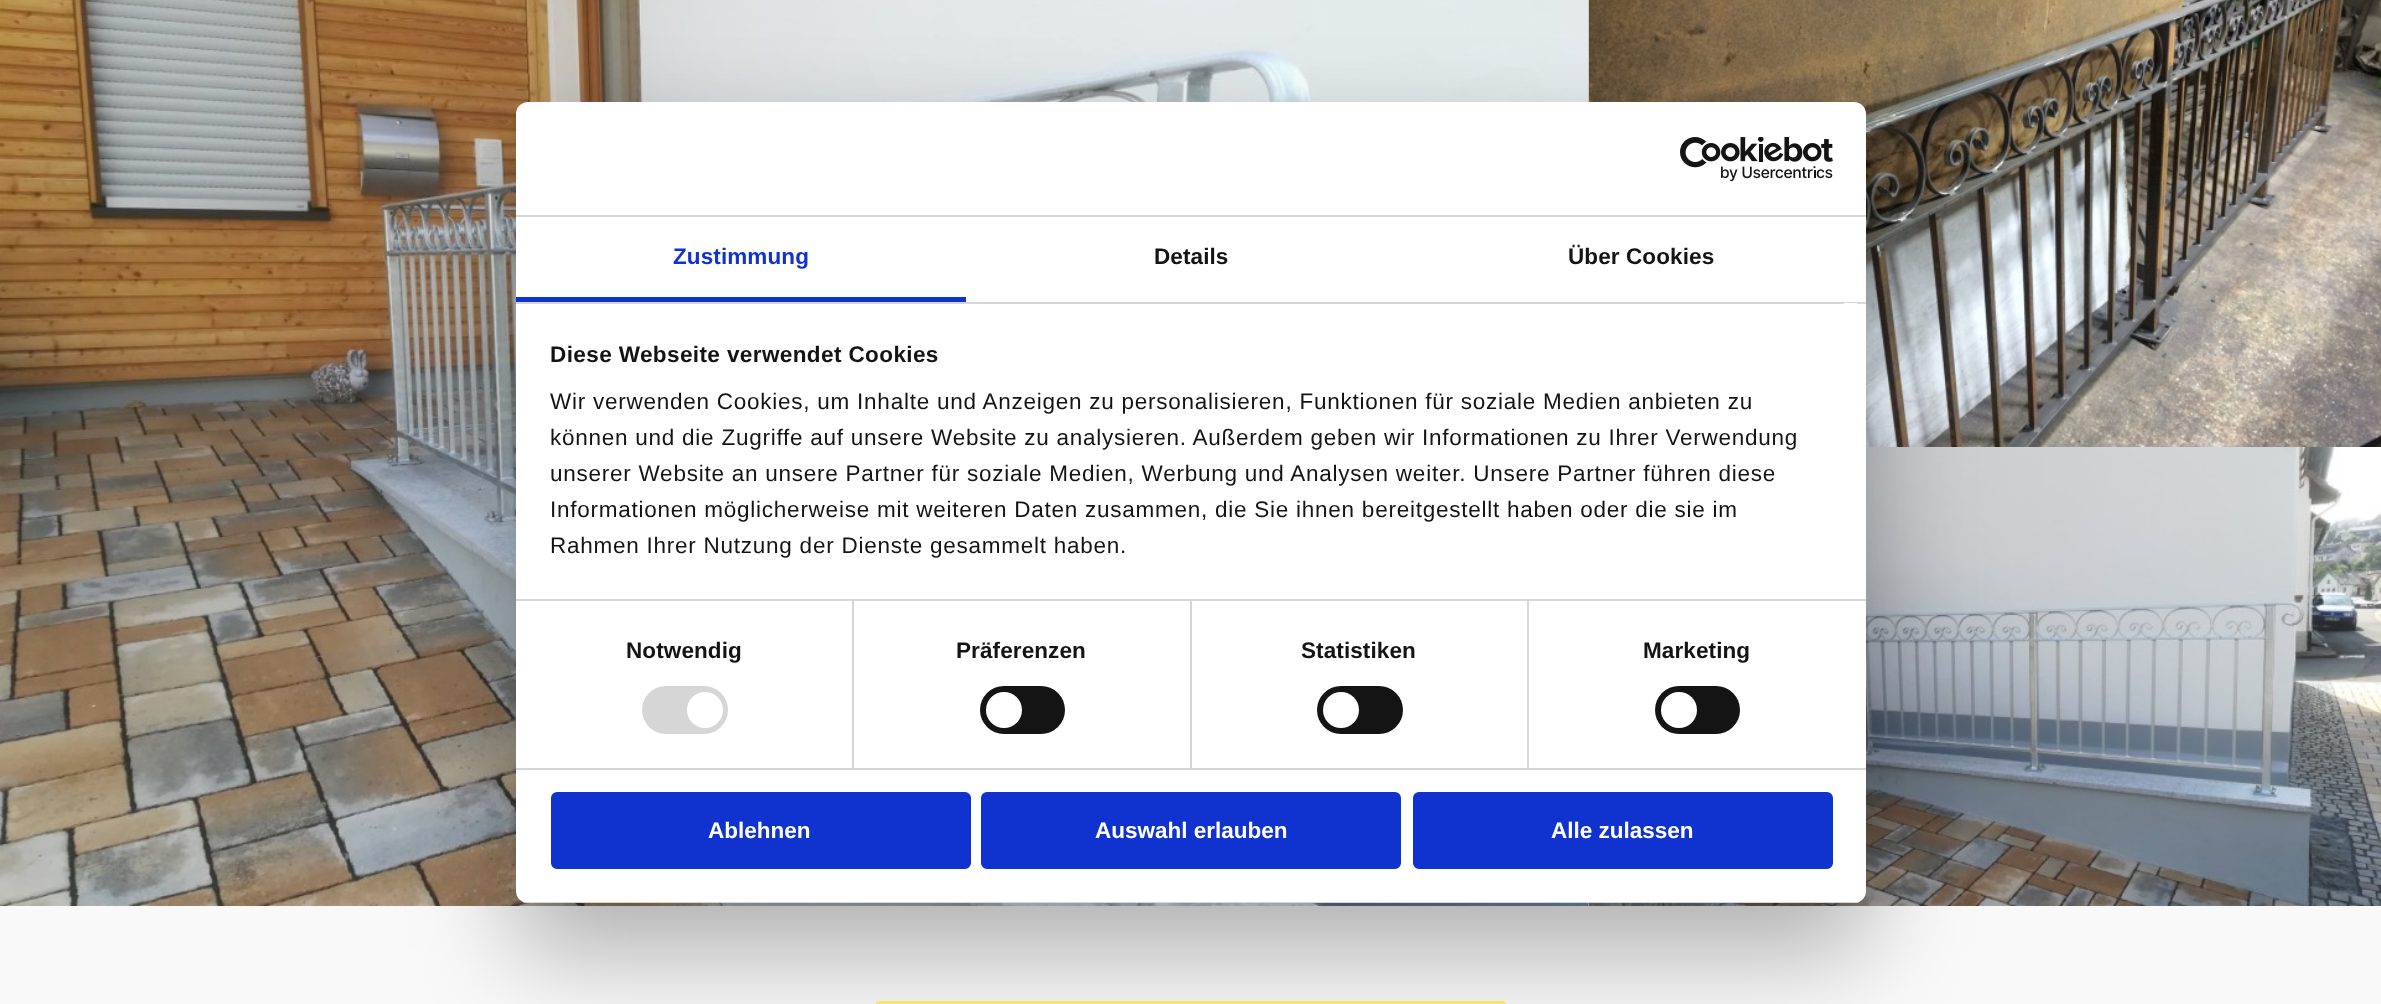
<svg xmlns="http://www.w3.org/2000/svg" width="2381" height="1004">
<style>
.a{font:bold 22.5px Liberation Sans;letter-spacing:0.1px;fill:#1032cf}
.b{font:bold 22.5px Liberation Sans;letter-spacing:0.1px;fill:#141414}
.c{font:bold 22.5px Liberation Sans;letter-spacing:0.4px;fill:#141414}
.d{font:22.5px Liberation Sans;letter-spacing:0.75px;fill:#141414}
.e{font:bold 22.5px Liberation Sans;fill:#fff}
</style>
<defs>
<clipPath id="clip1"><rect x="516" y="102" width="1350" height="801" rx="12"/></clipPath>
</defs>
<rect width="100%" height="100%" fill="#f9f9f9"/>
<image href="1.png" x="0" y="0" width="1589" height="906"/>
<image href="2.png" x="1588" y="0" width="793" height="447"/>
<image href="3.png" x="1588" y="447" width="793" height="459"/>
<rect fill="#fff176" stroke="#fff176" stroke-width="2" x="877" y="1002" width="628" height="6" rx="2"/>
<rect fill="#0000004d" filter="blur(51px)" x="516" y="150" width="1350" height="801" rx="12"/>
<rect fill="#fff" x="516" y="102" width="1350" height="801" rx="12"/>
<path fill="#d6d6d6" d="M516 215h1350v2H516z"/>
<image href="4.png" x="1680" y="137" width="153" height="45"/>
<path fill="#d6d6d6" d="M516 302h1350v2H516z"/>
<path fill="#1032cf" d="M516 297h450v5H516z"/>
<path fill="#d6d6d6" d="M852 600h2v168H852z"/>
<path fill="#d6d6d6" d="M1190 600h2v168H1190z"/>
<path fill="#d6d6d6" d="M1527 600h2v168H1527z"/>
<path fill="#d6d6d6" d="M516 599h1350v2H516z"/>
<path fill="#fff" d="M1844 303h13v1H1844z"/>
<path fill="#d6d6d6" d="M516 768h1350v2H516z"/>
<rect fill="#d6d6d6" x="642" y="686" width="86" height="48" rx="24"/>
<circle fill="#fff" cx="705" cy="710" r="18"/>
<rect fill="#141414" x="980" y="686" width="85" height="48" rx="24"/>
<circle fill="#fff" cx="1004" cy="710" r="18"/>
<rect fill="#141414" x="1317" y="686" width="86" height="48" rx="24"/>
<circle fill="#fff" cx="1341" cy="710" r="18"/>
<rect fill="#141414" x="1655" y="686" width="85" height="48" rx="24"/>
<circle fill="#fff" cx="1679" cy="710" r="18"/>
<g clip-path="url(#clip1)">
<path fill="#d6d6d6" d="M516 902h1350v1H516z"/>
</g>
<rect fill="#1032cf" stroke="#1032cf" stroke-width="3" x="552.5" y="793.5" width="417" height="74" rx="4.5"/>
<rect fill="#1032cf" stroke="#1032cf" stroke-width="3" x="982.5" y="793.5" width="417" height="74" rx="4.5"/>
<rect fill="#1032cf" stroke="#1032cf" stroke-width="3" x="1414.5" y="793.5" width="417" height="74" rx="4.5"/>
<text class="a" x="673" y="264">Zustimmung</text>
<text class="b" x="1154" y="264">Details</text>
<text class="b" x="1568" y="264">Über Cookies</text>
<text class="c" x="550" y="362">Diese Webseite verwendet Cookies</text>
<text class="d" x="550" y="409">Wir verwenden Cookies, um Inhalte und Anzeigen zu personalisieren, Funktionen für soziale Medien anbieten zu</text>
<text class="d" x="550" y="445">können und die Zugriffe auf unsere Website zu analysieren. Außerdem geben wir Informationen zu Ihrer Verwendung</text>
<text class="d" x="550" y="481">unserer Website an unsere Partner für soziale Medien, Werbung und Analysen weiter. Unsere Partner führen diese</text>
<text class="d" x="550" y="517">Informationen möglicherweise mit weiteren Daten zusammen, die Sie ihnen bereitgestellt haben oder die sie im</text>
<text class="d" x="550" y="553">Rahmen Ihrer Nutzung der Dienste gesammelt haben.</text>
<text class="b" x="626" y="658">Notwendig</text>
<text class="b" x="956" y="658">Präferenzen</text>
<text class="b" x="1301" y="658">Statistiken</text>
<text class="b" x="1643" y="658">Marketing</text>
<text class="e" x="708" y="838">Ablehnen</text>
<text class="e" x="1095" y="838">Auswahl erlauben</text>
<text class="e" x="1551" y="838">Alle zulassen</text>
</svg>
